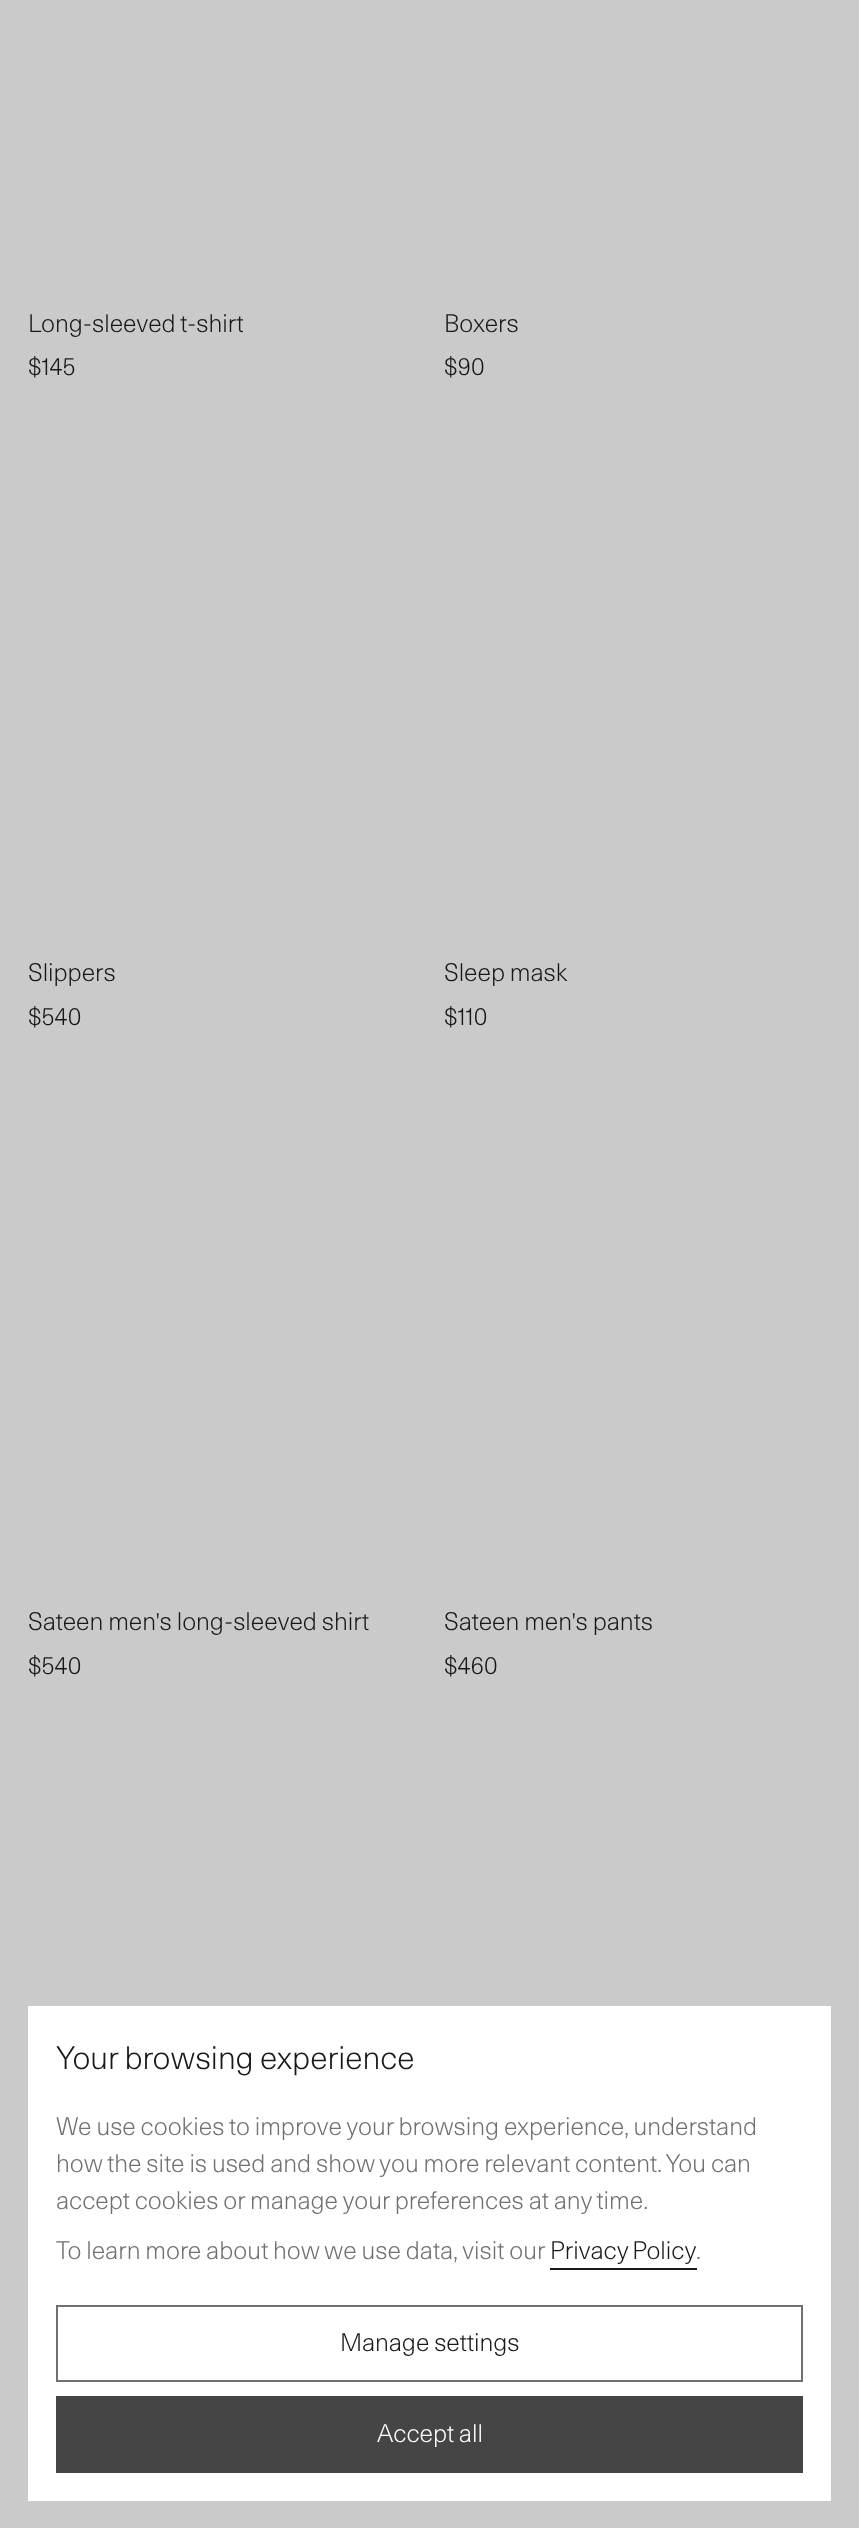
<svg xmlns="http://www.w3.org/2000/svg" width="859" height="2528">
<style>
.a{font:300 24.5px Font;fill:#181818}
.b{font:300 31.5px Font;fill:#181818}
.c{font:300 24.5px Font;fill:#707070}
.d{font:300 24.5px Font;fill:#fff}
</style>
<rect width="100%" height="100%" fill="#cacaca"/>
<path fill="#fff" d="M28 2006h803v495H28z"/>
<path fill="#181818" d="M550 2268h147v2H550z"/>
<path fill="none" stroke="#707070" stroke-width="2" d="M57 2306h745v75H57z"/>
<path fill="#454545" d="M56 2396h747v77H56z"/>
<text class="a" x="28" y="332">Long-sleeved t-shirt</text>
<text class="a" x="28" y="375">$145</text>
<text class="a" x="444" y="332">Boxers</text>
<text class="a" x="444" y="375">$90</text>
<text class="a" x="28" y="981">Slippers</text>
<text class="a" x="28" y="1025">$540</text>
<text class="a" x="444" y="981">Sleep mask</text>
<text class="a" x="444" y="1025">$110</text>
<text class="a" x="28" y="1630">Sateen men's long-sleeved shirt</text>
<text class="a" x="28" y="1674">$540</text>
<text class="a" x="444" y="1630">Sateen men's pants</text>
<text class="a" x="444" y="1674">$460</text>
<text class="b" x="56" y="2069">Your browsing experience</text>
<text class="c" x="56" y="2135">We use cookies to improve your browsing experience, understand</text>
<text class="c" x="56" y="2172">how the site is used and show you more relevant content. You can</text>
<text class="c" x="56" y="2209">accept cookies or manage your preferences at any time.</text>
<text class="c" x="56" y="2259">To learn more about how we use data, visit our</text>
<text class="a" x="550" y="2259" word-spacing="-1">Privacy Policy</text>
<text class="c" x="696" y="2259">.</text>
<text class="a" x="340" y="2351">Manage settings</text>
<text class="d" x="377" y="2442">Accept all</text>
</svg>
